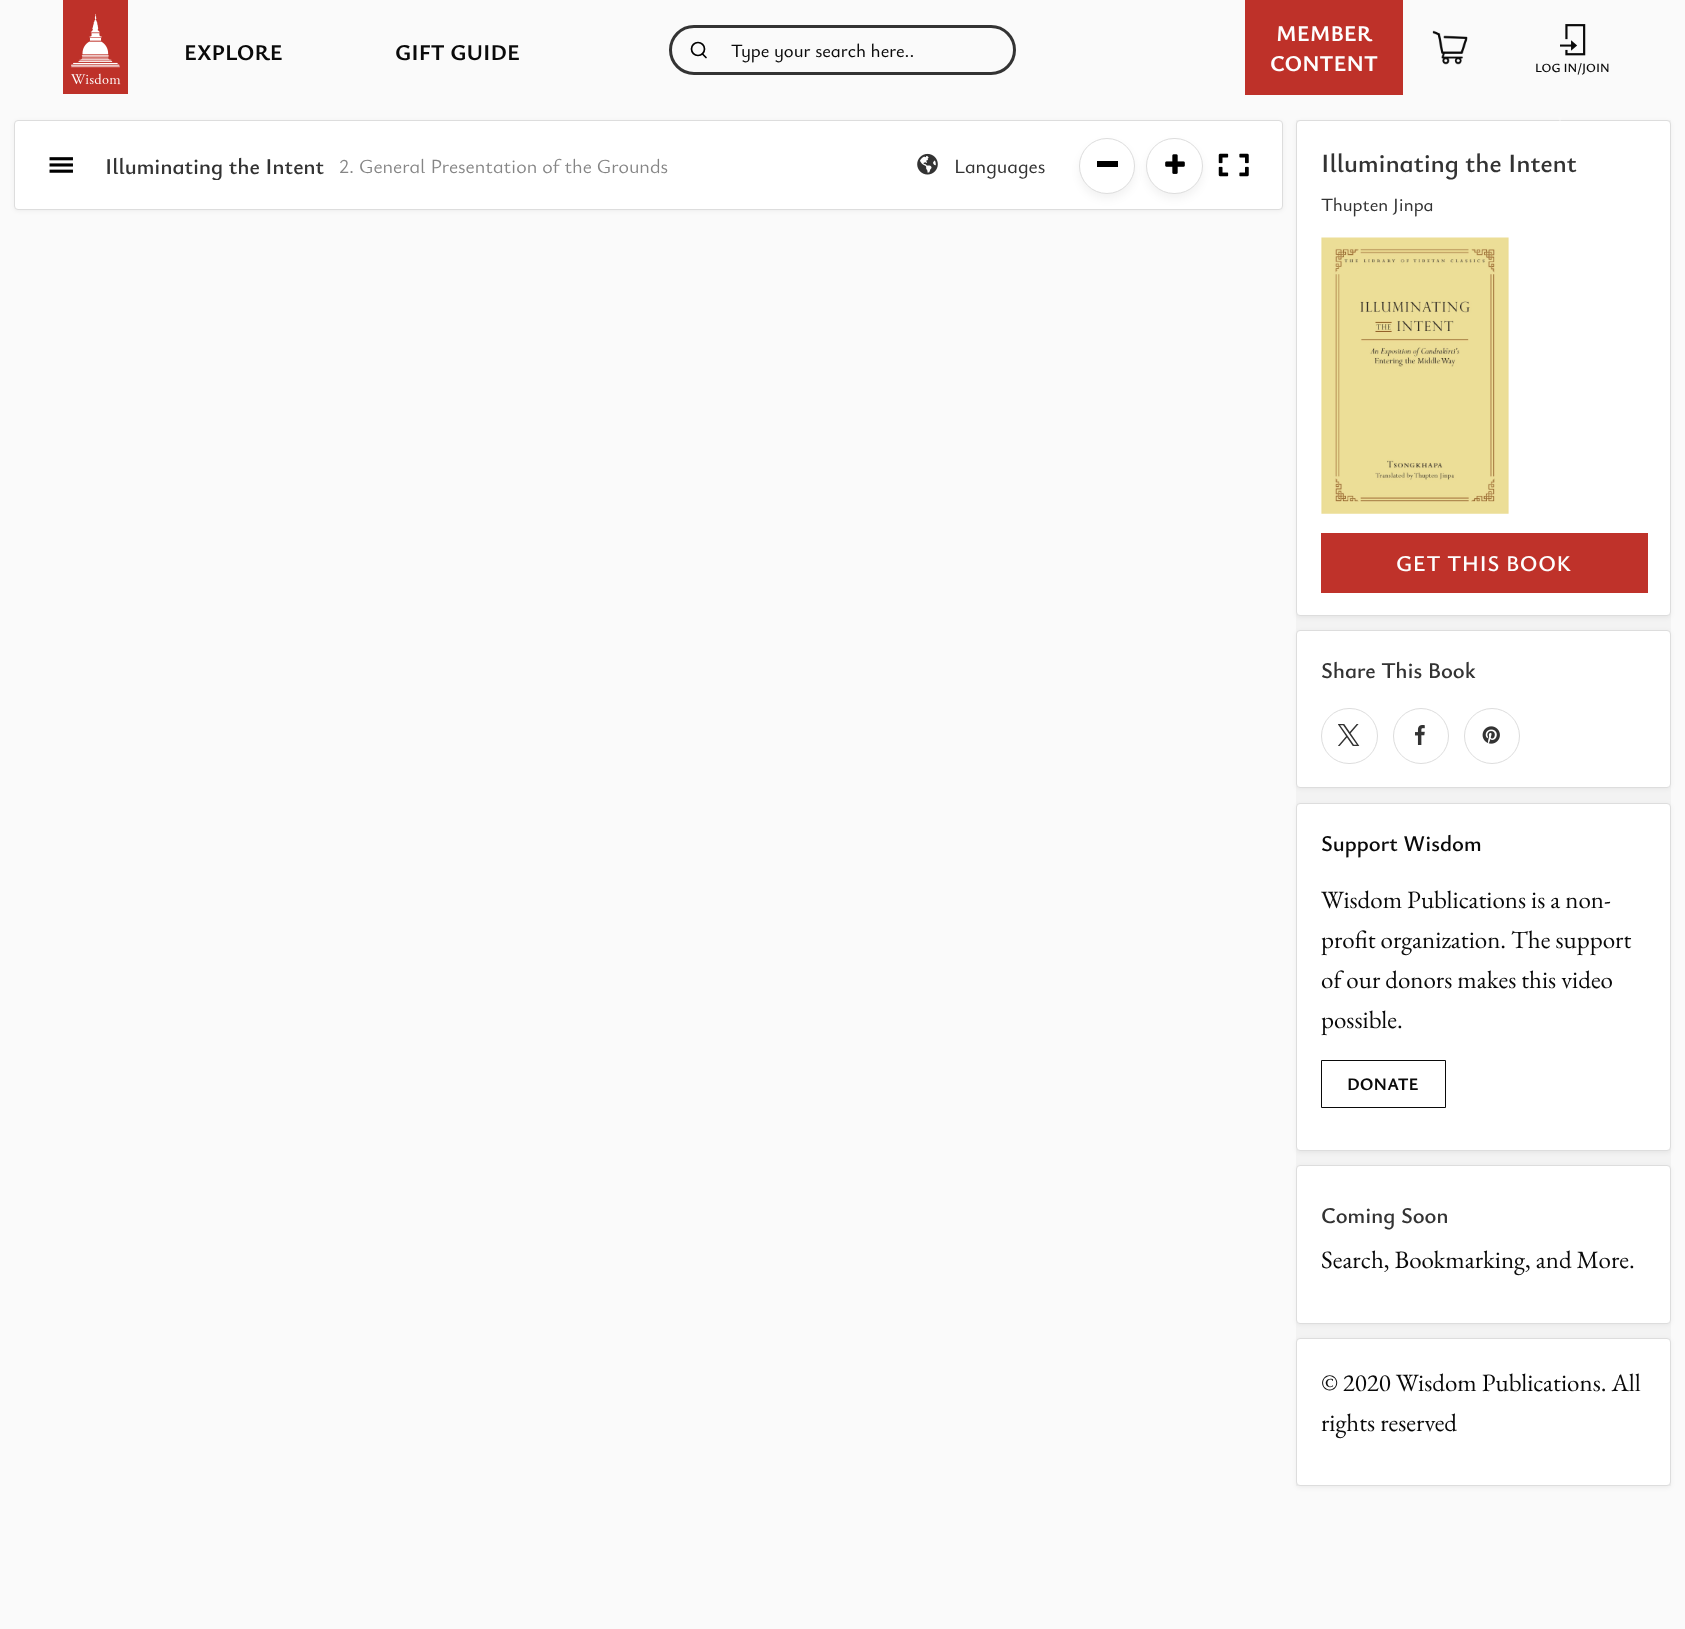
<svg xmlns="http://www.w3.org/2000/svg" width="1685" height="1629">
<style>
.a{font:bold 22.5px Ysabeau Infant;fill:#0a0a0a}
.b{font:500 18.75px Ysabeau Infant;fill:#0a0a0a}
.c{font:bold 22.5px Ysabeau Infant;fill:#fefefe}
.d{font:600 12.5px Ysabeau Infant;fill:#0a0a0a}
.e{font:600 22.5px Ysabeau Infant;fill:#333}
.f{font:20px Ysabeau Infant;fill:#858585}
.g{font:500 20px Ysabeau Infant;fill:#333}
.h{font:600 26.25px Ysabeau Infant;fill:#333}
.i{font:500 18.75px Ysabeau Infant;fill:#333}
.j{font:600 22.5px Ysabeau Infant;letter-spacing:0.6px;fill:#fefefe}
.k{font:600 22.5px Ysabeau Infant;fill:#0a0a0a}
.l{font:25px EB Garamond;fill:#0a0a0a}
.m{font:bold 17.5px Ysabeau Infant;fill:#0a0a0a}
</style>
<defs>
<clipPath id="clip1"><path d="M105 150h219v30H105z"/></clipPath>
</defs>
<rect width="100%" height="100%" fill="#fafafa"/>
<image href="1.png" x="63" y="0" width="65" height="94"/>
<rect fill="none" stroke="#333" stroke-width="3" x="670.5" y="26.5" width="344" height="47" rx="23.5"/>
<circle fill="none" stroke="#000" stroke-width="1.7" cx="698" cy="49" r="6.5"/>
<path fill="none" stroke="#000" stroke-width="1.7" stroke-linecap="round" stroke-linejoin="round" d="M706 57.5l-3.5-3.5"/>
<path fill="#be3129" d="M1245 0h158v95H1245z"/>
<image href="2.png" x="1432" y="30" width="36" height="35"/>
<image href="3.png" x="1560" y="24" width="26" height="32"/>
<path fill="#f3f3f3" d="M1296 120h375v1366H1296z"/>
<rect fill="#0000000d" filter="blur(2px)" x="1296" y="121" width="375" height="497" rx="4"/>
<rect fill="#fff" stroke="#ddd" x="1296.5" y="120.5" width="374" height="495" rx="3.5"/>
<path fill="#fafafa" d="M1541 96h38l-19 25z"/>
<rect fill="#0000000d" filter="blur(2px)" x="14" y="121" width="1269" height="90" rx="4"/>
<rect fill="#fff" stroke="#ddd" x="14.5" y="120.5" width="1268" height="89" rx="3.5"/>
<image href="4.png" x="49" y="157" width="24" height="16"/>
<image href="5.png" x="917" y="153" width="21" height="22"/>
<rect fill="#0000000d" filter="blur(4px)" x="1079" y="143" width="56" height="56" rx="28"/>
<circle fill="#fff" stroke="#ddd" cx="1107" cy="166" r="27.5"/>
<path fill="#000" d="M1097 161h21v6H1097z"/>
<rect fill="#0000000d" filter="blur(4px)" x="1146" y="143" width="57" height="56" rx="28"/>
<rect fill="#fff" stroke="#ddd" x="1146.5" y="138.5" width="56" height="55" rx="27.5"/>
<image href="6.png" x="1165" y="154" width="20" height="20"/>
<image href="7.png" x="1218" y="153" width="31" height="24"/>
<image href="8.png" x="1321" y="237" width="188" height="277"/>
<path fill="#bf322a" d="M1321 533h327v60H1321z"/>
<rect fill="#0000000d" filter="blur(2px)" x="1296" y="631" width="375" height="158" rx="4"/>
<rect fill="#fff" stroke="#ddd" x="1296.5" y="630.5" width="374" height="157" rx="3.5"/>
<rect fill="none" stroke="#ddd" x="1321.5" y="708.5" width="56" height="55" rx="27.5"/>
<image href="9.png" x="1338" y="724" width="22" height="22"/>
<circle fill="none" stroke="#ddd" cx="1421" cy="736" r="27.5"/>
<image href="10.png" x="1415" y="725" width="10" height="20"/>
<circle fill="none" stroke="#ddd" cx="1492" cy="736" r="27.5"/>
<image href="11.png" x="1482" y="726" width="18" height="18"/>
<rect fill="#0000000d" filter="blur(2px)" x="1296" y="804" width="375" height="349" rx="4"/>
<rect fill="#fff" stroke="#ddd" x="1296.5" y="803.5" width="374" height="347" rx="3.5"/>
<path fill="none" stroke="#0a0a0a" d="M1321.5 1060.5h124v47H1321.5z"/>
<rect fill="#0000000d" filter="blur(2px)" x="1296" y="1166" width="375" height="159" rx="4"/>
<rect fill="#fff" stroke="#ddd" x="1296.5" y="1165.5" width="374" height="158" rx="3.5"/>
<rect fill="#0000000d" filter="blur(2px)" x="1296" y="1339" width="375" height="149" rx="4"/>
<rect fill="#fff" stroke="#ddd" x="1296.5" y="1338.5" width="374" height="147" rx="3.5"/>
<text class="a" x="184" y="60">EXPLORE</text>
<text class="a" x="395" y="60">GIFT GUIDE</text>
<text class="b" x="731" y="57">Type your search here..</text>
<text class="c" x="1276" y="41">MEMBER</text>
<text class="c" x="1270" y="71">CONTENT</text>
<text class="d" x="1535" y="72">LOG IN/JOIN</text>
<g clip-path="url(#clip1)">
<text class="e" x="105" y="174">Illuminating the Intent</text>
</g>
<text class="f" x="339" y="173">2. General Presentation of the Grounds</text>
<text class="g" x="954" y="173">Languages</text>
<text class="h" x="1321" y="172">Illuminating the Intent</text>
<text class="i" x="1321" y="211">Thupten Jinpa</text>
<text class="j" x="1396" y="571">GET THIS BOOK</text>
<text class="e" x="1321" y="678">Share This Book</text>
<text class="k" x="1321" y="851">Support Wisdom</text>
<text class="l" x="1321" y="908">Wisdom Publications is a non-</text>
<text class="l" x="1321" y="948">profit organization. The support</text>
<text class="l" x="1321" y="988">of our donors makes this video</text>
<text class="l" x="1321" y="1028">possible.</text>
<text class="m" x="1347" y="1090">DONATE</text>
<text class="e" x="1321" y="1223">Coming Soon</text>
<text class="l" x="1321" y="1268">Search, Bookmarking, and More.</text>
<text class="l" x="1321" y="1391">© 2020 Wisdom Publications. All</text>
<text class="l" x="1321" y="1431">rights reserved</text>
</svg>
